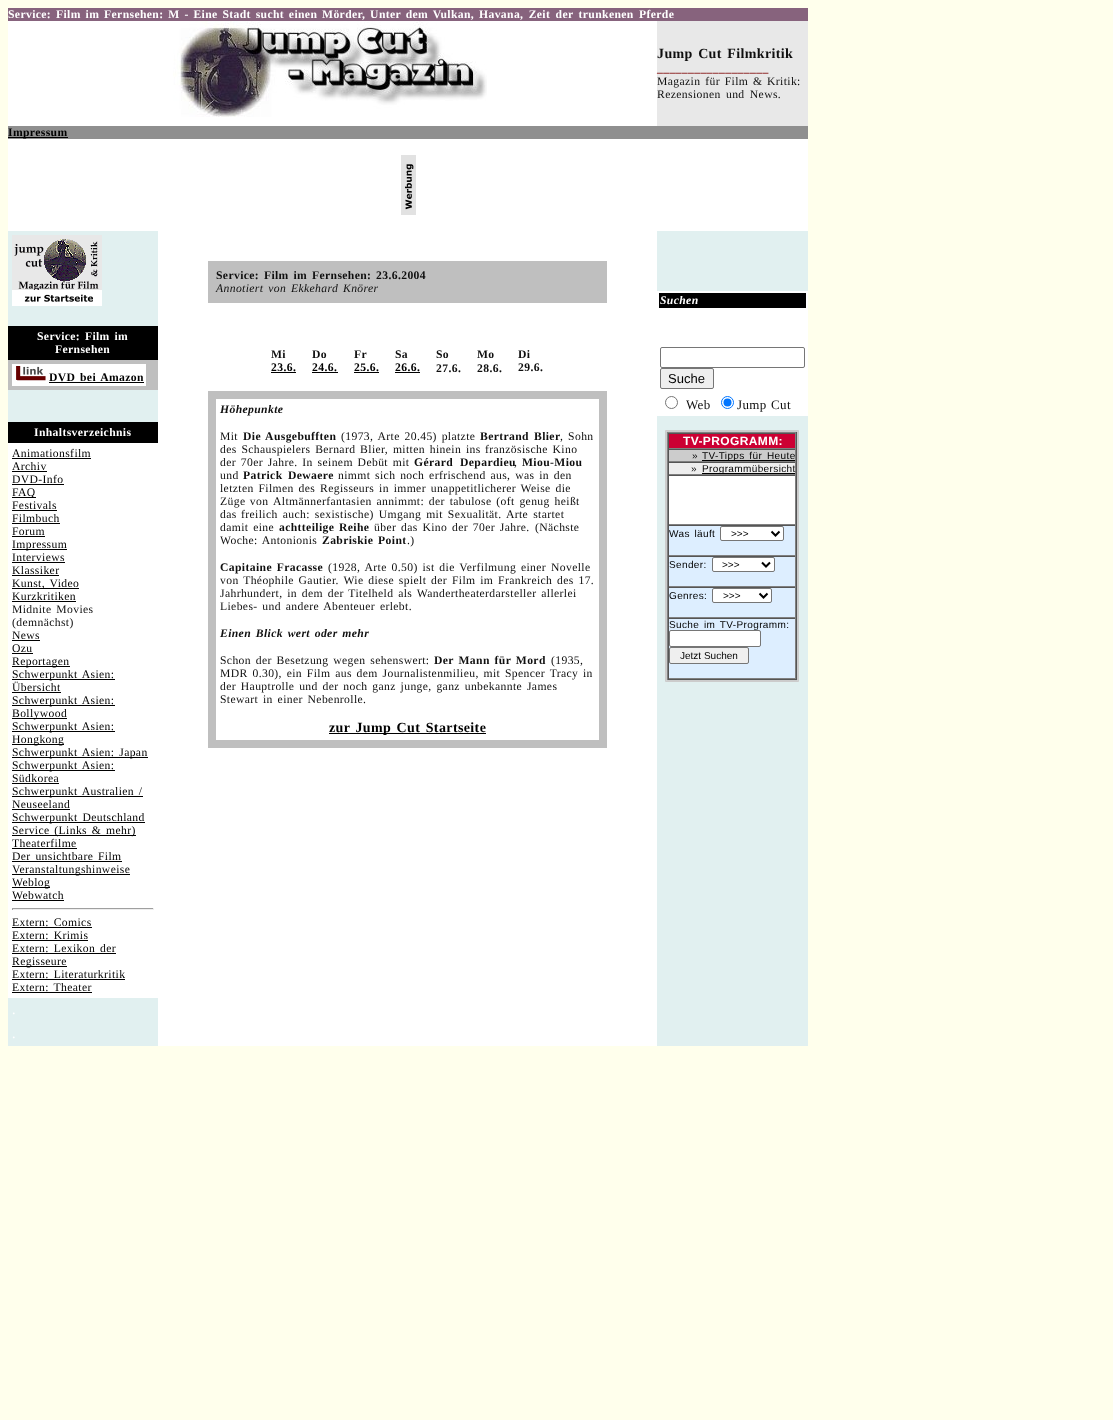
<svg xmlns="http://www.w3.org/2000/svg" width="1113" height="1420">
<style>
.a{font:bold 11.65px Liberation Serif;letter-spacing:0.38px;fill:#fff}
.b{font:bold 14px Liberation Serif;letter-spacing:0.38px;fill:#0f0f0f}
.c{font:bold 11.65px Liberation Serif;letter-spacing:0.38px;fill:#7d0000}
.d{font:11.65px Liberation Serif;letter-spacing:0.38px;fill:#0f0f0f}
.e{font:bold 11.65px Liberation Serif;letter-spacing:0.38px;fill:#000}
.f{font:11.65px Liberation Serif;letter-spacing:0.38px;fill:#000}
.g{font:14px Liberation Serif;letter-spacing:0.38px;fill:#fff}
.h{font:bold 11.65px Liberation Serif;letter-spacing:0.38px;fill:#0f0f0f}
.i{font:italic 11.65px Liberation Serif;letter-spacing:0.38px;fill:#0f0f0f}
.j{font:italic bold 11.65px Liberation Serif;letter-spacing:0.38px;fill:#0f0f0f}
.k{font:bold 14px Liberation Serif;letter-spacing:0.38px;fill:#000}
.l{font:italic bold 11.65px Liberation Serif;letter-spacing:0.38px;fill:#fff}
.m{font:13px Liberation Sans;fill:#000}
.n{font:13px Liberation Serif;letter-spacing:0.38px;fill:#0f0f0f}
.o{font:bold 12px Liberation Sans;letter-spacing:0.38px;fill:#fff}
.p{font:10px Liberation Sans;letter-spacing:0.38px;fill:#000}
.q{font:10px Liberation Sans;fill:#000}
</style>
<rect width="100%" height="100%" fill="#ffffec"/>
<path fill="#fff" d="M8 21h800v1025H8z"/>
<path fill="#87637d" d="M8 8h800v13H8z"/>
<image href="1.png" x="173" y="21" width="314" height="96"/>
<path fill="#e8e8e8" d="M657 21h151v105H657z"/>
<path fill="#8f8f8f" d="M8 126h800v13H8z"/>
<path fill="#000" d="M8 137h60v1H8z"/>
<image href="2.png" x="401" y="155" width="15" height="60"/>
<path fill="#e1f0f0" d="M8 231h150v815H8z"/>
<image href="3.png" x="12" y="235" width="90" height="55"/>
<image href="4.png" x="12" y="290" width="90" height="16"/>
<path fill="#000" d="M8 326h150v34H8z"/>
<path fill="#bfbfbf" d="M8 360h150v30H8z"/>
<path fill="#fff" d="M12 364h134v22H12z"/>
<image href="5.png" x="16" y="366" width="30" height="15"/>
<path fill="#000" d="M49 382h95v1H49z"/>
<path fill="#000" d="M8 422h150v21H8z"/>
<path fill="#fff" d="M8 443h150v555H8z"/>
<path fill="#000" d="M12 458h79v1H12z"/>
<path fill="#000" d="M12 471h35v1H12z"/>
<path fill="#000" d="M12 484h52v1H12z"/>
<path fill="#000" d="M12 497h24v1H12z"/>
<path fill="#000" d="M12 510h45v1H12z"/>
<path fill="#000" d="M12 523h48v1H12z"/>
<path fill="#000" d="M12 536h33v1H12z"/>
<path fill="#000" d="M12 549h55v1H12z"/>
<path fill="#000" d="M12 562h53v1H12z"/>
<path fill="#000" d="M12 575h47v1H12z"/>
<path fill="#000" d="M12 588h67v1H12z"/>
<path fill="#000" d="M12 601h64v1H12z"/>
<path fill="#000" d="M12 640h28v1H12z"/>
<path fill="#000" d="M12 653h21v1H12z"/>
<path fill="#000" d="M12 666h58v1H12z"/>
<path fill="#000" d="M12 679h103v1H12z"/>
<path fill="#000" d="M12 692h49v1H12z"/>
<path fill="#000" d="M12 705h103v1H12z"/>
<path fill="#000" d="M12 718h55v1H12z"/>
<path fill="#000" d="M12 731h103v1H12z"/>
<path fill="#000" d="M12 744h52v1H12z"/>
<path fill="#000" d="M12 757h136v1H12z"/>
<path fill="#000" d="M12 770h103v1H12z"/>
<path fill="#000" d="M12 783h47v1H12z"/>
<path fill="#000" d="M12 796h131v1H12z"/>
<path fill="#000" d="M12 809h58v1H12z"/>
<path fill="#000" d="M12 822h133v1H12z"/>
<path fill="#000" d="M12 835h124v1H12z"/>
<path fill="#000" d="M12 848h65v1H12z"/>
<path fill="#000" d="M12 861h110v1H12z"/>
<path fill="#000" d="M12 874h118v1H12z"/>
<path fill="#000" d="M12 887h38v1H12z"/>
<path fill="#000" d="M12 900h52v1H12z"/>
<path fill="#9f9f9f" d="M12 908h142v1H12z"/>
<path fill="#eee" d="M153 908h1v2H153z"/>
<path fill="#eee" d="M12 909h142v1H12z"/>
<path fill="#9f9f9f" d="M12 908h1v2H12z"/>
<path fill="#000" d="M12 927h80v1H12z"/>
<path fill="#000" d="M12 940h76v1H12z"/>
<path fill="#000" d="M12 953h104v1H12z"/>
<path fill="#000" d="M12 966h55v1H12z"/>
<path fill="#000" d="M12 979h113v1H12z"/>
<path fill="#000" d="M12 992h80v1H12z"/>
<path fill="#bfbfbf" d="M208 261h399v42H208z"/>
<path fill="#000" d="M271 372h25v1H271z"/>
<path fill="#000" d="M312 372h26v1H312z"/>
<path fill="#000" d="M354 372h25v1H354z"/>
<path fill="#000" d="M395 372h25v1H395z"/>
<path fill="#bfbfbf" d="M208 391h399v357H208z"/>
<path fill="#fff" d="M216 399h383v341H216z"/>
<path fill="#000" d="M329 733h157v1H329z"/>
<path fill="#e1f0f0" d="M657 231h151v815H657z"/>
<path fill="#fff" d="M657 291h151v125H657z"/>
<path fill="#000" d="M659 293h147v15H659z"/>
<rect fill="none" stroke="#767676" x="660.5" y="347.5" width="144" height="20" rx="1.5"/>
<rect fill="#efefef" stroke="#767676" x="660.5" y="368.5" width="53" height="20" rx="1.5"/>
<circle fill="none" stroke="#767676" cx="671.5" cy="402.5" r="6"/>
<circle fill="none" stroke="#0075ff" cx="727.5" cy="402.5" r="6"/>
<circle fill="#0075ff" cx="727.5" cy="402.5" r="4"/>
<path fill="none" stroke="#ccc" d="M665.5 430.5h133v251H665.5z"/>
<path fill="none" stroke="#ccc" d="M666.5 431.5h131v249H666.5z"/>
<path fill="#def" d="M669 526h126v152H669z"/>
<path fill="#808080" d="M667 432h130v1H667z"/>
<path fill="#555" d="M796 432h1v248H796z"/>
<path fill="#555" d="M667 679h130v1H667z"/>
<path fill="#808080" d="M667 432h1v248H667z"/>
<path fill="#c03" d="M669 434h126v14H669z"/>
<path fill="#555" d="M668 433h128v1H668z"/>
<path fill="#808080" d="M795 433h1v16H795z"/>
<path fill="#808080" d="M668 448h128v1H668z"/>
<path fill="#555" d="M668 433h1v16H668z"/>
<path fill="#ccc" d="M669 450h126v11H669z"/>
<path fill="#555" d="M668 449h128v1H668z"/>
<path fill="#808080" d="M795 449h1v13H795z"/>
<path fill="#808080" d="M668 461h128v1H668z"/>
<path fill="#555" d="M668 449h1v13H668z"/>
<path fill="#000" d="M702 460h93v1H702z"/>
<path fill="#eee" d="M669 463h126v11H669z"/>
<path fill="#555" d="M668 462h128v1H668z"/>
<path fill="#808080" d="M795 462h1v13H795z"/>
<path fill="#808080" d="M668 474h128v1H668z"/>
<path fill="#555" d="M668 462h1v13H668z"/>
<path fill="#000" d="M702 473h93v1H702z"/>
<path fill="#fff" d="M669 476h126v48H669z"/>
<path fill="#555" d="M668 475h128v1H668z"/>
<path fill="#808080" d="M795 475h1v50H795z"/>
<path fill="#808080" d="M668 524h128v1H668z"/>
<path fill="#555" d="M668 475h1v50H668z"/>
<path fill="#555" d="M668 525h128v1H668z"/>
<path fill="#808080" d="M795 525h1v31H795z"/>
<path fill="#808080" d="M668 555h128v1H668z"/>
<path fill="#555" d="M668 525h1v31H668z"/>
<rect fill="#fff" stroke="#767676" x="720.5" y="526.5" width="63" height="14" rx="1.5"/>
<path fill="none" stroke="#000" stroke-width="2" d="M771.5 531.5l4 4l4-4"/>
<path fill="#555" d="M668 556h128v1H668z"/>
<path fill="#808080" d="M795 556h1v31H795z"/>
<path fill="#808080" d="M668 586h128v1H668z"/>
<path fill="#555" d="M668 556h1v31H668z"/>
<rect fill="#fff" stroke="#767676" x="712.5" y="557.5" width="62" height="14" rx="1.5"/>
<path fill="none" stroke="#000" stroke-width="2" d="M762 562.5l4 4l4-4"/>
<path fill="#555" d="M668 587h128v1H668z"/>
<path fill="#808080" d="M795 587h1v31H795z"/>
<path fill="#808080" d="M668 617h128v1H668z"/>
<path fill="#555" d="M668 587h1v31H668z"/>
<rect fill="#fff" stroke="#767676" x="712.5" y="588.5" width="59" height="14" rx="1.5"/>
<path fill="none" stroke="#000" stroke-width="2" d="M759.5 593.5l4 4l4-4"/>
<path fill="#555" d="M668 618h128v1H668z"/>
<path fill="#808080" d="M795 618h1v61H795z"/>
<path fill="#808080" d="M668 678h128v1H668z"/>
<path fill="#555" d="M668 618h1v61H668z"/>
<rect fill="#efefef" stroke="#767676" x="669.5" y="647.5" width="79" height="16" rx="1.5"/>
<text class="a" x="8" y="18">Service:</text>
<text class="a" x="56" y="18" word-spacing="1.5">Film im Fernsehen: M - Eine Stadt sucht einen Mörder, Unter dem Vulkan,</text>
<text class="a" x="479" y="18" word-spacing="2">Havana, Zeit der trunkenen Pferde</text>
<text class="b" x="657" y="58" word-spacing="1.5">Jump Cut Filmkritik</text>
<text class="c" x="657" y="72">__________________</text>
<text class="d" x="657" y="85" word-spacing="1.5">Magazin für Film &amp;</text>
<text class="d" x="767" y="85">Kritik:</text>
<text class="d" x="657" y="98" word-spacing="2">Rezensionen und News.</text>
<text class="e" x="8" y="136">Impressum</text>
<text class="a" x="37" y="340" word-spacing="1.5">Service: Film im</text>
<text class="a" x="55" y="353">Fernsehen</text>
<text class="e" x="49" y="381">DVD</text>
<text class="e" x="80" y="381" word-spacing="1.5">bei Amazon</text>
<text class="a" x="34" y="436">Inhaltsverzeichnis</text>
<text class="f" x="12" y="457">Animationsfilm</text>
<text class="f" x="12" y="470">Archiv</text>
<text class="f" x="12" y="483">DVD-Info</text>
<text class="f" x="12" y="496">FAQ</text>
<text class="f" x="12" y="509">Festivals</text>
<text class="f" x="12" y="522">Filmbuch</text>
<text class="f" x="12" y="535">Forum</text>
<text class="f" x="12" y="548">Impressum</text>
<text class="f" x="12" y="561">Interviews</text>
<text class="f" x="12" y="574">Klassiker</text>
<text class="f" x="12" y="587" word-spacing="1.5">Kunst, Video</text>
<text class="f" x="12" y="600">Kurzkritiken</text>
<text class="d" x="12" y="613" word-spacing="1.5">Midnite Movies</text>
<text class="d" x="12" y="626">(demnächst)</text>
<text class="f" x="12" y="639">News</text>
<text class="f" x="12" y="652">Ozu</text>
<text class="f" x="12" y="665">Reportagen</text>
<text class="f" x="12" y="678" word-spacing="1.5">Schwerpunkt Asien:</text>
<text class="f" x="12" y="691">Übersicht</text>
<text class="f" x="12" y="704" word-spacing="1.5">Schwerpunkt Asien:</text>
<text class="f" x="12" y="717">Bollywood</text>
<text class="f" x="12" y="730" word-spacing="1.5">Schwerpunkt Asien:</text>
<text class="f" x="12" y="743">Hongkong</text>
<text class="f" x="12" y="756" word-spacing="1.5">Schwerpunkt Asien: Japan</text>
<text class="f" x="12" y="769" word-spacing="1.5">Schwerpunkt Asien:</text>
<text class="f" x="12" y="782">Südkorea</text>
<text class="f" x="12" y="795" word-spacing="1.5">Schwerpunkt Australien /</text>
<text class="f" x="12" y="808">Neuseeland</text>
<text class="f" x="12" y="821" word-spacing="1.5">Schwerpunkt Deutschland</text>
<text class="f" x="12" y="834" word-spacing="1.5">Service (Links &amp; mehr)</text>
<text class="f" x="12" y="847">Theaterfilme</text>
<text class="f" x="12" y="860" word-spacing="1.5">Der unsichtbare Film</text>
<text class="f" x="12" y="873">Veranstaltungshinweise</text>
<text class="f" x="12" y="886">Weblog</text>
<text class="f" x="12" y="899">Webwatch</text>
<text class="f" x="12" y="926" word-spacing="1.5">Extern: Comics</text>
<text class="f" x="12" y="939" word-spacing="1.5">Extern: Krimis</text>
<text class="f" x="12" y="952" word-spacing="1.5">Extern: Lexikon der</text>
<text class="f" x="12" y="965">Regisseure</text>
<text class="f" x="12" y="978" word-spacing="1.5">Extern: Literaturkritik</text>
<text class="f" x="12" y="991" word-spacing="1.5">Extern: Theater</text>
<text class="g" x="12" y="1014">.</text>
<text class="g" x="12" y="1038">.</text>
<text class="h" x="216" y="279" word-spacing="1.5">Service: Film im Fernsehen:</text>
<text class="h" x="376" y="279">23.6.2004</text>
<text class="i" x="216" y="292" word-spacing="1.5">Annotiert von Ekkehard</text>
<text class="i" x="343" y="292">Knörer</text>
<text class="h" x="271" y="358">Mi</text>
<text class="e" x="271" y="371">23.6.</text>
<text class="h" x="312" y="358">Do</text>
<text class="e" x="312" y="371">24.6.</text>
<text class="h" x="354" y="358">Fr</text>
<text class="e" x="354" y="371">25.6.</text>
<text class="h" x="395" y="358">Sa</text>
<text class="e" x="395" y="371">26.6.</text>
<text class="h" x="436" y="358">So</text>
<text class="h" x="436" y="372">27.6.</text>
<text class="h" x="477" y="358">Mo</text>
<text class="h" x="477" y="372">28.6.</text>
<text class="h" x="518" y="358">Di</text>
<text class="h" x="518" y="371">29.6.</text>
<text class="j" x="220" y="413">Höhepunkte</text>
<text class="d" x="220" y="440">Mit</text>
<text class="h" x="243" y="440" word-spacing="1.5">Die Ausgebufften</text>
<text class="d" x="341" y="440" word-spacing="1.5">(1973, Arte 20.45) platzte</text>
<text class="h" x="480" y="440">Bertrand</text>
<text class="h" x="534" y="440">Blier</text>
<text class="d" x="560" y="440" word-spacing="1.5">, Sohn</text>
<text class="d" x="220" y="453" word-spacing="1.5">des Schauspielers Bernard Blier, mitten hinein ins</text>
<text class="d" x="485" y="453" word-spacing="1.5">französische Kino</text>
<text class="d" x="220" y="466" word-spacing="1.5">der 70er Jahre. In seinem Debüt mit</text>
<text class="h" x="414" y="466">Gérard</text>
<text class="h" x="460" y="466">Depardieu</text>
<text class="d" x="514" y="466">,</text>
<text class="h" x="522" y="466">Miou-Miou</text>
<text class="d" x="220" y="479">und</text>
<text class="h" x="243" y="479">Patrick</text>
<text class="h" x="288" y="479">Dewaere</text>
<text class="d" x="338" y="479" word-spacing="1.5">nimmt sich noch erfrischend aus, was in den</text>
<text class="d" x="220" y="492" word-spacing="1.5">letzten Filmen des</text>
<text class="d" x="320" y="492" word-spacing="1.5">Regisseurs in immer unappetitlicherer Weise die</text>
<text class="d" x="220" y="505" word-spacing="1">Züge von</text>
<text class="d" x="273" y="505" word-spacing="1.5">Altmännerfantasien annimmt: der tabulose (oft genug heißt</text>
<text class="d" x="220" y="518">das</text>
<text class="d" x="241" y="518" word-spacing="1.75">freilich auch: sexistische) Umgang mit Sexualität. Arte startet</text>
<text class="d" x="220" y="531" word-spacing="1.5">damit eine</text>
<text class="h" x="279" y="531" word-spacing="1.5">achtteilige Reihe</text>
<text class="d" x="374" y="531" word-spacing="1.5">über das Kino der 70er Jahre.</text>
<text class="d" x="535" y="531">(Nächste</text>
<text class="d" x="220" y="544" word-spacing="1.5">Woche: Antonionis</text>
<text class="h" x="322" y="544" word-spacing="1.5">Zabriskie Point</text>
<text class="d" x="407" y="544">.)</text>
<text class="h" x="220" y="571" word-spacing="1.5">Capitaine Fracasse</text>
<text class="d" x="328" y="571" word-spacing="1.5">(1928, Arte 0.50) ist die Verfilmung einer</text>
<text class="d" x="551" y="571">Novelle</text>
<text class="d" x="220" y="584" word-spacing="1.5">von Théophile Gautier. Wie diese spielt der Film im Frankreich</text>
<text class="d" x="557" y="584" word-spacing="1.5">des 17.</text>
<text class="d" x="220" y="597" word-spacing="1.5">Jahrhundert, in dem der Titelheld als Wandertheaterdarsteller allerlei</text>
<text class="d" x="220" y="610" word-spacing="1.5">Liebes- und andere Abenteuer erlebt.</text>
<text class="j" x="220" y="637" word-spacing="1.5">Einen Blick wert oder mehr</text>
<text class="d" x="220" y="664" word-spacing="1.5">Schon der Besetzung wegen sehenswert:</text>
<text class="h" x="434" y="664" word-spacing="1.5">Der Mann für Mord</text>
<text class="d" x="551" y="664">(1935,</text>
<text class="d" x="220" y="677" word-spacing="1.5">MDR 0.30), ein Film aus dem Journalistenmilieu, mit Spencer Tracy</text>
<text class="d" x="583" y="677">in</text>
<text class="d" x="220" y="690" word-spacing="1.5">der Hauptrolle und der noch ganz junge, ganz unbekannte James</text>
<text class="d" x="220" y="703">Stewart</text>
<text class="d" x="263" y="703" word-spacing="1.5">in einer Nebenrolle.</text>
<text class="k" x="329" y="732" word-spacing="1.5">zur Jump Cut Startseite</text>
<text class="l" x="660" y="304">Suchen</text>
<text class="m" x="668" y="383">Suche</text>
<text class="n" x="686" y="409">Web</text>
<text class="n" x="737" y="409">Jump</text>
<text class="n" x="771" y="409">Cut</text>
<text class="o" x="683" y="445">TV-PROGRAMM:</text>
<text class="p" x="692" y="459">»</text>
<text class="p" x="702" y="459" word-spacing="1.5">TV-Tipps für</text>
<text class="p" x="767" y="459">Heute</text>
<text class="p" x="691" y="472">»</text>
<text class="p" x="702" y="472">Programmübersicht</text>
<text class="p" x="669" y="537" word-spacing="1.5">Was läuft</text>
<text class="q" x="731" y="537">&gt;&gt;&gt;</text>
<text class="p" x="669" y="568">Sender:</text>
<text class="q" x="722" y="568">&gt;&gt;&gt;</text>
<text class="p" x="669" y="599">Genres:</text>
<text class="q" x="723" y="599">&gt;&gt;&gt;</text>
<text class="p" x="669" y="628">Suche</text>
<text class="p" x="704" y="628" word-spacing="1.5">im TV-Programm:</text>
<rect fill="#fff" stroke="#767676" x="669.5" y="630.5" width="91" height="16" rx="1.5"/>
<text class="q" x="680" y="659">Jetzt Suchen</text>
</svg>
